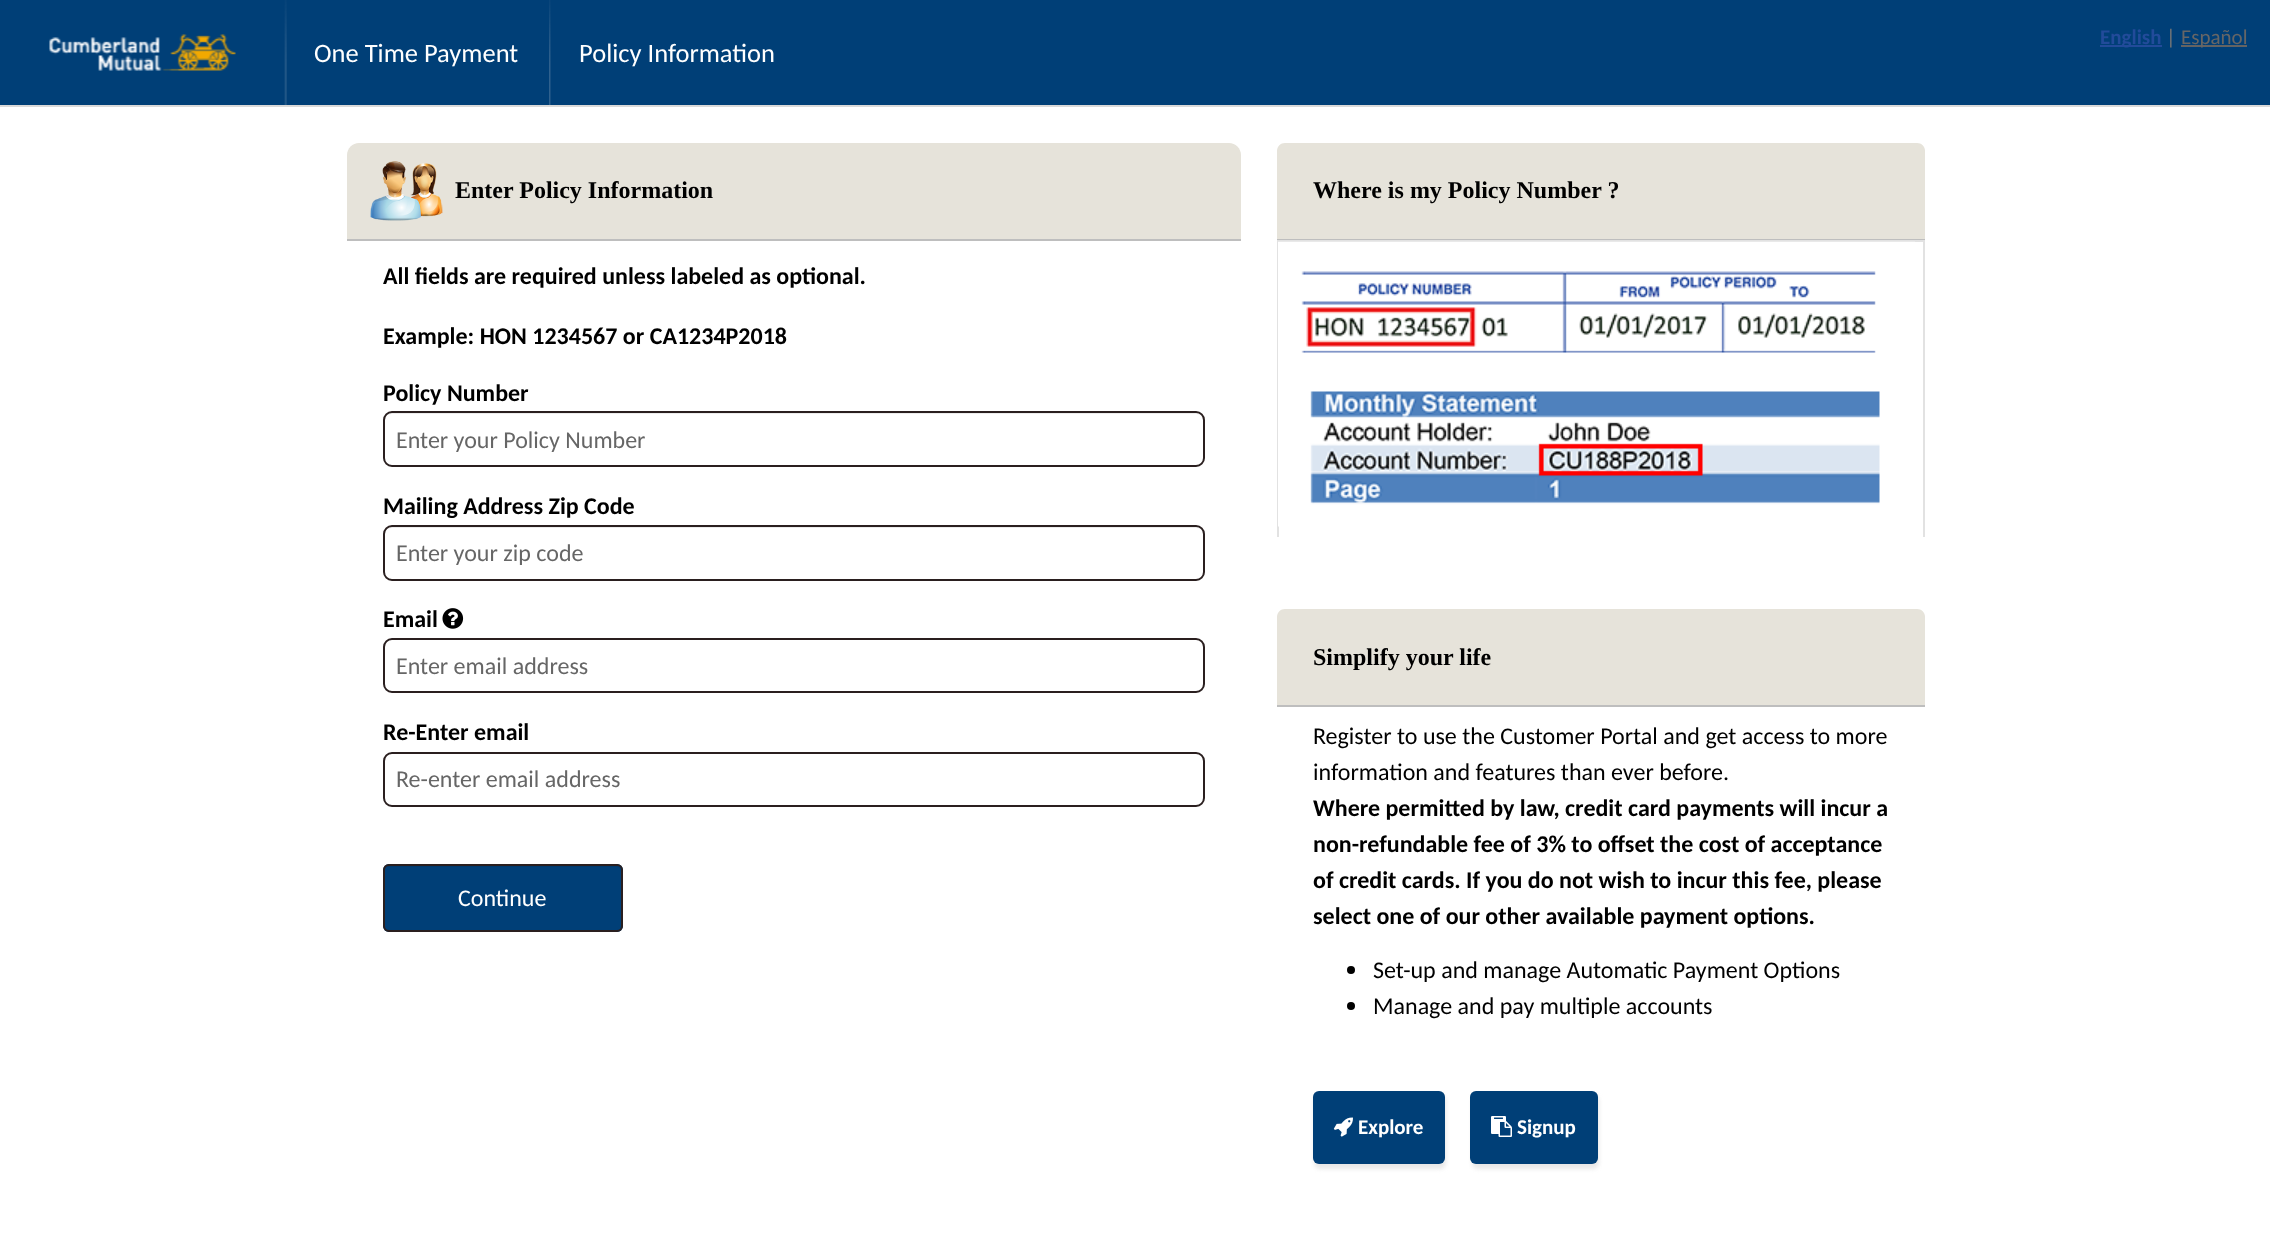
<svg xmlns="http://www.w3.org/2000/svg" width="2270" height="1246">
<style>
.a{font:26.5px Carlito;fill:#fff}
.b{font:bold 21px Carlito;fill:#224b9a}
.c{font:21px Carlito;fill:#767676}
.d{font:21px Carlito;fill:#666}
.e{font:bold 24px Liberation Serif;fill:#000}
.f{font:bold 24px Carlito;fill:#000}
.g{font:24px Carlito;fill:#666}
.h{font:24px Carlito;fill:#fff}
.i{font:24px Carlito;fill:#000}
.j{font:bold 21px Carlito;fill:#fff}
</style>
<rect width="100%" height="100%" fill="#fff"/>
<path fill="#003f77" d="M0 0h2270v105H0z"/>
<path fill="#d9d9d9" d="M0 105h2270v2H0z"/>
<image href="1.png" x="49" y="34" width="187" height="37"/>
<image href="2.png" x="284" y="0" width="3" height="105"/>
<image href="3.png" x="549" y="0" width="2" height="105"/>
<path fill="#224b9a" d="M2100 45h62v2H2100z"/>
<path fill="#636363" d="M2181 45h66v2H2181z"/>
<path fill="#e6e3da" d="M359 143h870c6.5 0 12 5.5 12 12v85h-894v-85c0-6.5 5.5-12 12-12z"/>
<path fill="#bebebe" d="M347 239h894v2H347z"/>
<image href="4.png" x="370" y="161" width="73" height="60"/>
<path fill="#ececec" d="M392 414h804c4 0 7 3 7 8v-1c0-4-4-8-8-8h-803c-4 0-8 4-8 8v1c0-5 3-8 8-8z"/>
<rect fill="none" stroke="#2a1f1f" stroke-width="2" x="384" y="412" width="820" height="54" rx="8"/>
<path fill="#ececec" d="M392 528h804c4 0 7 3 7 8v-1c0-4-4-8-8-8h-803c-4 0-8 4-8 8v1c0-5 3-8 8-8z"/>
<rect fill="none" stroke="#2a1f1f" stroke-width="2" x="384" y="526" width="820" height="54" rx="8"/>
<image href="5.png" x="442" y="608" width="22" height="21"/>
<rect fill="none" stroke="#2a1f1f" stroke-width="2" x="384" y="639" width="820" height="53" rx="8"/>
<rect fill="none" stroke="#2a1f1f" stroke-width="2" x="384" y="753" width="820" height="53" rx="8"/>
<rect fill="#003f77" x="383" y="864" width="240" height="68" rx="6"/>
<path fill="#003a6e" d="M388 867h228c3 0 5 2 5 5v-1c0-3-2-5-5-5h-227c-3 0-5 2-5 5v1c0-3 2-5 4-5z"/>
<rect fill="none" stroke="#2a1f1f" stroke-width="2" x="384" y="865" width="238" height="66" rx="5"/>
<path fill="#e6e3da" d="M1285 143h632c4.5 0 8 3.5 8 8v89h-648v-89c0-4.5 3.5-8 8-8z"/>
<path fill="#bebebe" d="M1277 239h648v1H1277z"/>
<path fill="#e2e2e2" d="M1277 240h648v2H1277z"/>
<path fill="#e2e2e2" d="M1923 240h2v297H1923z"/>
<path fill="#e2e2e2" d="M1277 240h2v297H1277z"/>
<image href="6.png" x="1278" y="241" width="637" height="286"/>
<path fill="#e6e3da" d="M1285 609h632c4.5 0 8 3.5 8 8v90h-648v-90c0-4.5 3.5-8 8-8z"/>
<path fill="#bebebe" d="M1277 705h648v2H1277z"/>
<circle fill="#000" cx="1351" cy="970" r="4"/>
<circle fill="#000" cx="1351" cy="1006" r="4"/>
<rect fill="#e8e8e8" filter="blur(2px)" x="1314" y="1095" width="132" height="74" rx="6"/>
<rect fill="#003f77" x="1313" y="1091" width="132" height="73" rx="6"/>
<image href="7.png" x="1333" y="1117" width="20" height="20"/>
<rect fill="#e8e8e8" filter="blur(2px)" x="1472" y="1095" width="127" height="74" rx="6"/>
<rect fill="#003f77" x="1470" y="1091" width="128" height="73" rx="6"/>
<image href="8.png" x="1491" y="1116" width="21" height="21"/>
<text class="a" x="314" y="62">One Time Payment</text>
<text class="a" x="579" y="62">Policy Information</text>
<text class="b" x="2100" y="44">English</text>
<text class="c" x="2166" y="44">|</text>
<text class="d" x="2181" y="44">Español</text>
<text class="e" x="455" y="198">Enter Policy Information</text>
<text class="f" x="383" y="284">All fields are required unless labeled as optional.</text>
<text class="f" x="383" y="344">Example: HON 1234567 or CA1234P2018</text>
<text class="f" x="383" y="401">Policy Number</text>
<text class="g" x="396" y="448">Enter your Policy Number</text>
<text class="f" x="383" y="514">Mailing Address Zip Code</text>
<text class="g" x="396" y="561">Enter your zip code</text>
<text class="f" x="383" y="627">Email</text>
<text class="g" x="396" y="674">Enter email address</text>
<text class="f" x="383" y="740">Re-Enter email</text>
<text class="g" x="396" y="787">Re-enter email address</text>
<text class="h" x="458" y="906">Continue</text>
<text class="e" x="1313" y="198">Where is my Policy Number ?</text>
<text class="e" x="1313" y="665">Simplify your life</text>
<text class="i" x="1313" y="744">Register to use the Customer Portal and get access to more</text>
<text class="i" x="1313" y="780">information and features than ever before.</text>
<text class="f" x="1313" y="816">Where permitted by law, credit card payments will incur a</text>
<text class="f" x="1313" y="852">non-refundable fee of 3% to offset the cost of acceptance</text>
<text class="f" x="1313" y="888">of credit cards. If you do not wish to incur this fee, please</text>
<text class="f" x="1313" y="924">select one of our other available payment options.</text>
<text class="i" x="1373" y="978">Set-up and manage Automatic Payment Options</text>
<text class="i" x="1373" y="1014">Manage and pay multiple accounts</text>
<text class="j" x="1358" y="1134">Explore</text>
<text class="j" x="1517" y="1134">Signup</text>
</svg>
